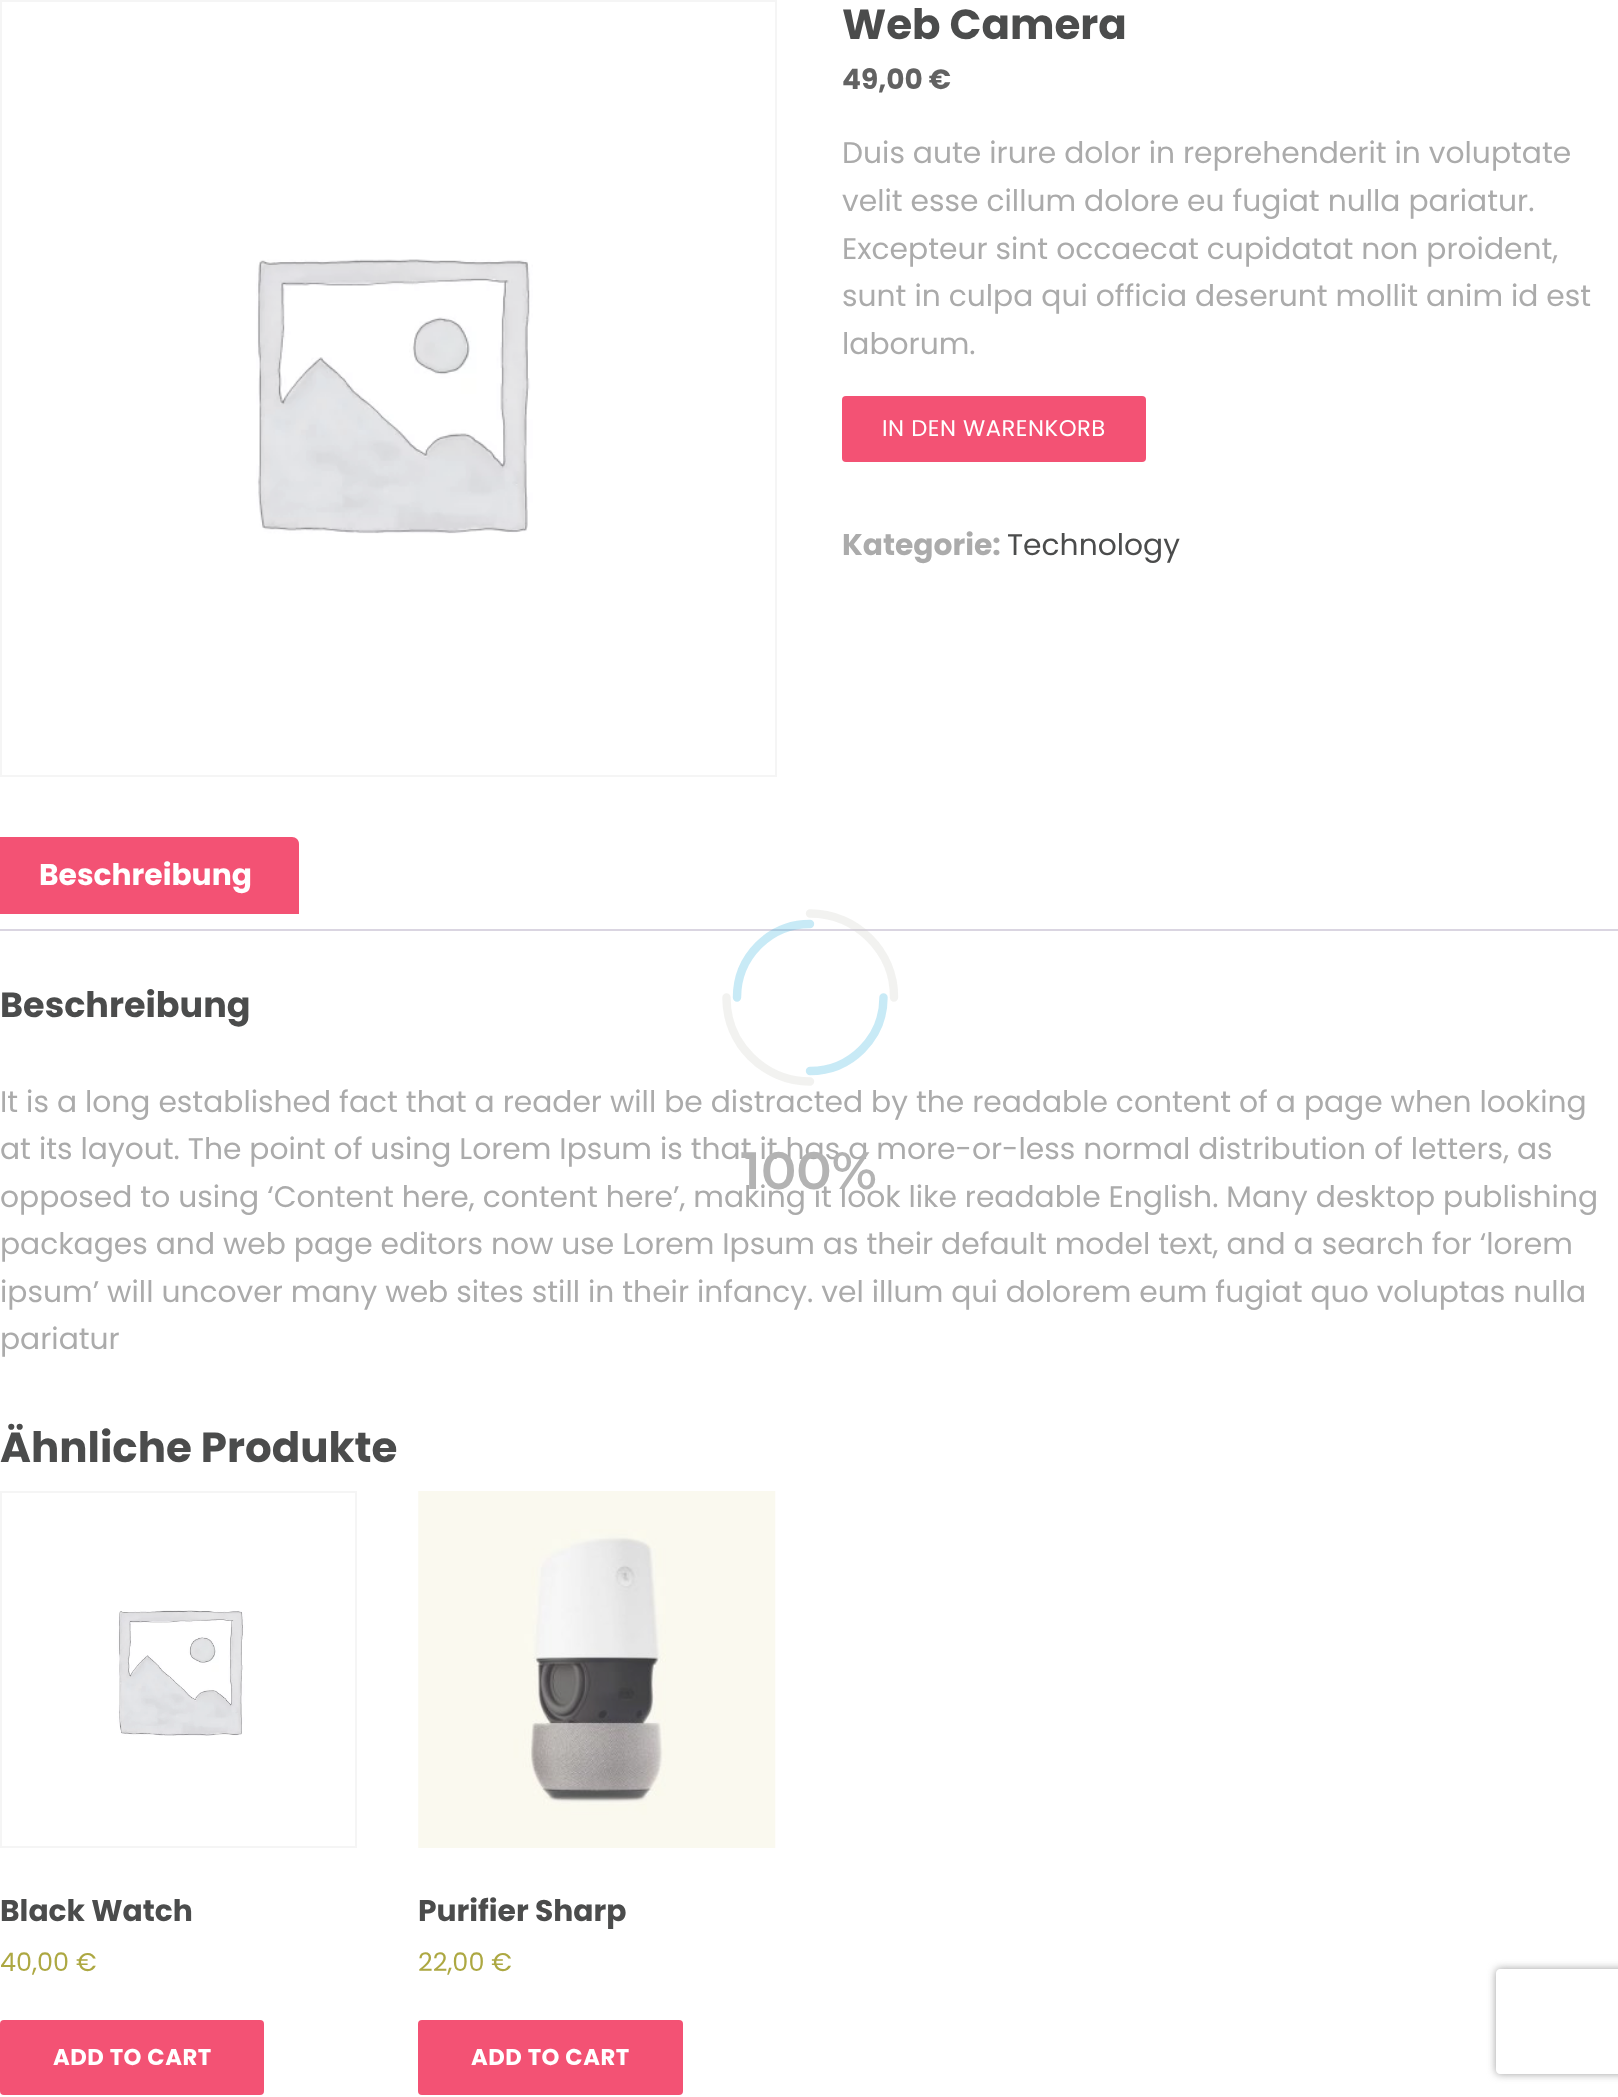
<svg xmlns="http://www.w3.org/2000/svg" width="1618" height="2097">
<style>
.a{font:bold 42px Poppins;fill:#4b4c4c}
.b{font:bold 28px Poppins;fill:#626262}
.c{font:29.75px Poppins;fill:#ababab}
.d{font:22.75px Poppins;letter-spacing:0.5px;fill:#fff}
.e{font:bold 29.75px Poppins;fill:#ababab}
.f{font:29.75px Poppins;fill:#4b4c4c}
.g{font:bold 29.75px Poppins;fill:#fff}
.h{font:bold 35px Poppins;fill:#4b4c4c}
.i{font:bold 29.75px Poppins;fill:#4b4c4c}
.j{font:25.5px Poppins;fill:#ada842}
.k{font:bold 22.75px Poppins;letter-spacing:0.5px;fill:#fff}
.l{font:600 52.5px Montserrat;fill:#b3b3b3}
</style>
<defs>
<clipPath id="clip1"><path d="M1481 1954h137v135h-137zm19 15h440c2 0 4 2 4 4v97c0 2-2 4-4 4h-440c-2 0-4-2-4-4v-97c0-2 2-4 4-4z" clip-rule="evenodd"/></clipPath>
</defs>
<rect width="100%" height="100%" fill="#fff"/>
<path fill="none" stroke="#f5f5f5" stroke-width="2" d="M1 1h775v775H1z"/>
<image href="1.png" x="256" y="259" width="277" height="275"/>
<rect fill="#f35274" x="842" y="396" width="304" height="66" rx="4"/>
<path fill="#f35274" d="M0 837h292c4 0 7 3 7 7v70h-299z"/>
<path fill="#dad5e1" d="M0 929h1618v2H0z"/>
<path fill="none" stroke="#f5f5f5" stroke-width="2" d="M1 1492h355v355H1z"/>
<image href="2.png" x="117" y="1610" width="128" height="126"/>
<rect fill="#f35274" y="2020" width="264" height="75" rx="4"/>
<image href="3.png" x="418" y="1491" width="358" height="357"/>
<rect fill="#f35274" x="418" y="2020" width="265" height="75" rx="4"/>
<g clip-path="url(#clip1)">
<rect fill="#9d9d9d" filter="blur(4.5px)" x="1496" y="1969" width="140" height="105" rx="4"/>
</g>
<path fill="none" stroke="#d1d1ca47" stroke-width="8.4" stroke-linecap="round" d="M810 913.5c46.5 0 84.5 38 84 84m-84 84c-46 0-84-38-83.5-84"/>
<path fill="none" stroke="#39b2df47" stroke-width="8.4" stroke-linecap="round" d="M883.5 997.5c0 40.5-33 73.5-73.5 73.5m-73-73.5c0-40.5 32.5-73.5 73-73.5"/>
<text class="a" x="842" y="39">Web Camera</text>
<text class="b" x="842" y="89">49,00 €</text>
<text class="c" x="842" y="163">Duis aute irure dolor in reprehenderit in voluptate</text>
<text class="c" x="842" y="211">velit esse cillum dolore eu fugiat nulla pariatur.</text>
<text class="c" x="842" y="259">Excepteur sint occaecat cupidatat non proident,</text>
<text class="c" x="842" y="306">sunt in culpa qui officia deserunt mollit anim id est</text>
<text class="c" x="842" y="354">laborum.</text>
<text class="d" x="882" y="436">IN DEN WARENKORB</text>
<text class="e" x="842" y="555">Kategorie:</text>
<text class="f" x="1007" y="555">Technology</text>
<text class="g" x="39" y="885">Beschreibung</text>
<text class="h" x="0" y="1017">Beschreibung</text>
<text class="c" x="0" y="1112">It is a long established fact that a reader will be distracted by the readable content of a page when looking</text>
<text class="c" x="0" y="1159">at its layout. The point of using Lorem Ipsum is that it has a more-or-less normal distribution of letters, as</text>
<text class="c" x="0" y="1207">opposed to using ‘Content here, content here’, making it look like readable English. Many desktop publishing</text>
<text class="c" x="0" y="1254">packages and web page editors now use Lorem Ipsum as their default model text, and a search for ‘lorem</text>
<text class="c" x="0" y="1302">ipsum’ will uncover many web sites still in their infancy. vel illum qui dolorem eum fugiat quo voluptas nulla</text>
<text class="c" x="0" y="1349">pariatur</text>
<text class="a" x="0" y="1462">Ähnliche Produkte</text>
<text class="i" x="0" y="1921">Black Watch</text>
<text class="j" x="0" y="1971">40,00 €</text>
<text class="k" x="53" y="2065">ADD TO CART</text>
<text class="i" x="418" y="1921">Purifier Sharp</text>
<text class="j" x="418" y="1971">22,00 €</text>
<text class="k" x="471" y="2065">ADD TO CART</text>
<text class="l" x="741" y="1189">100%</text>
</svg>
